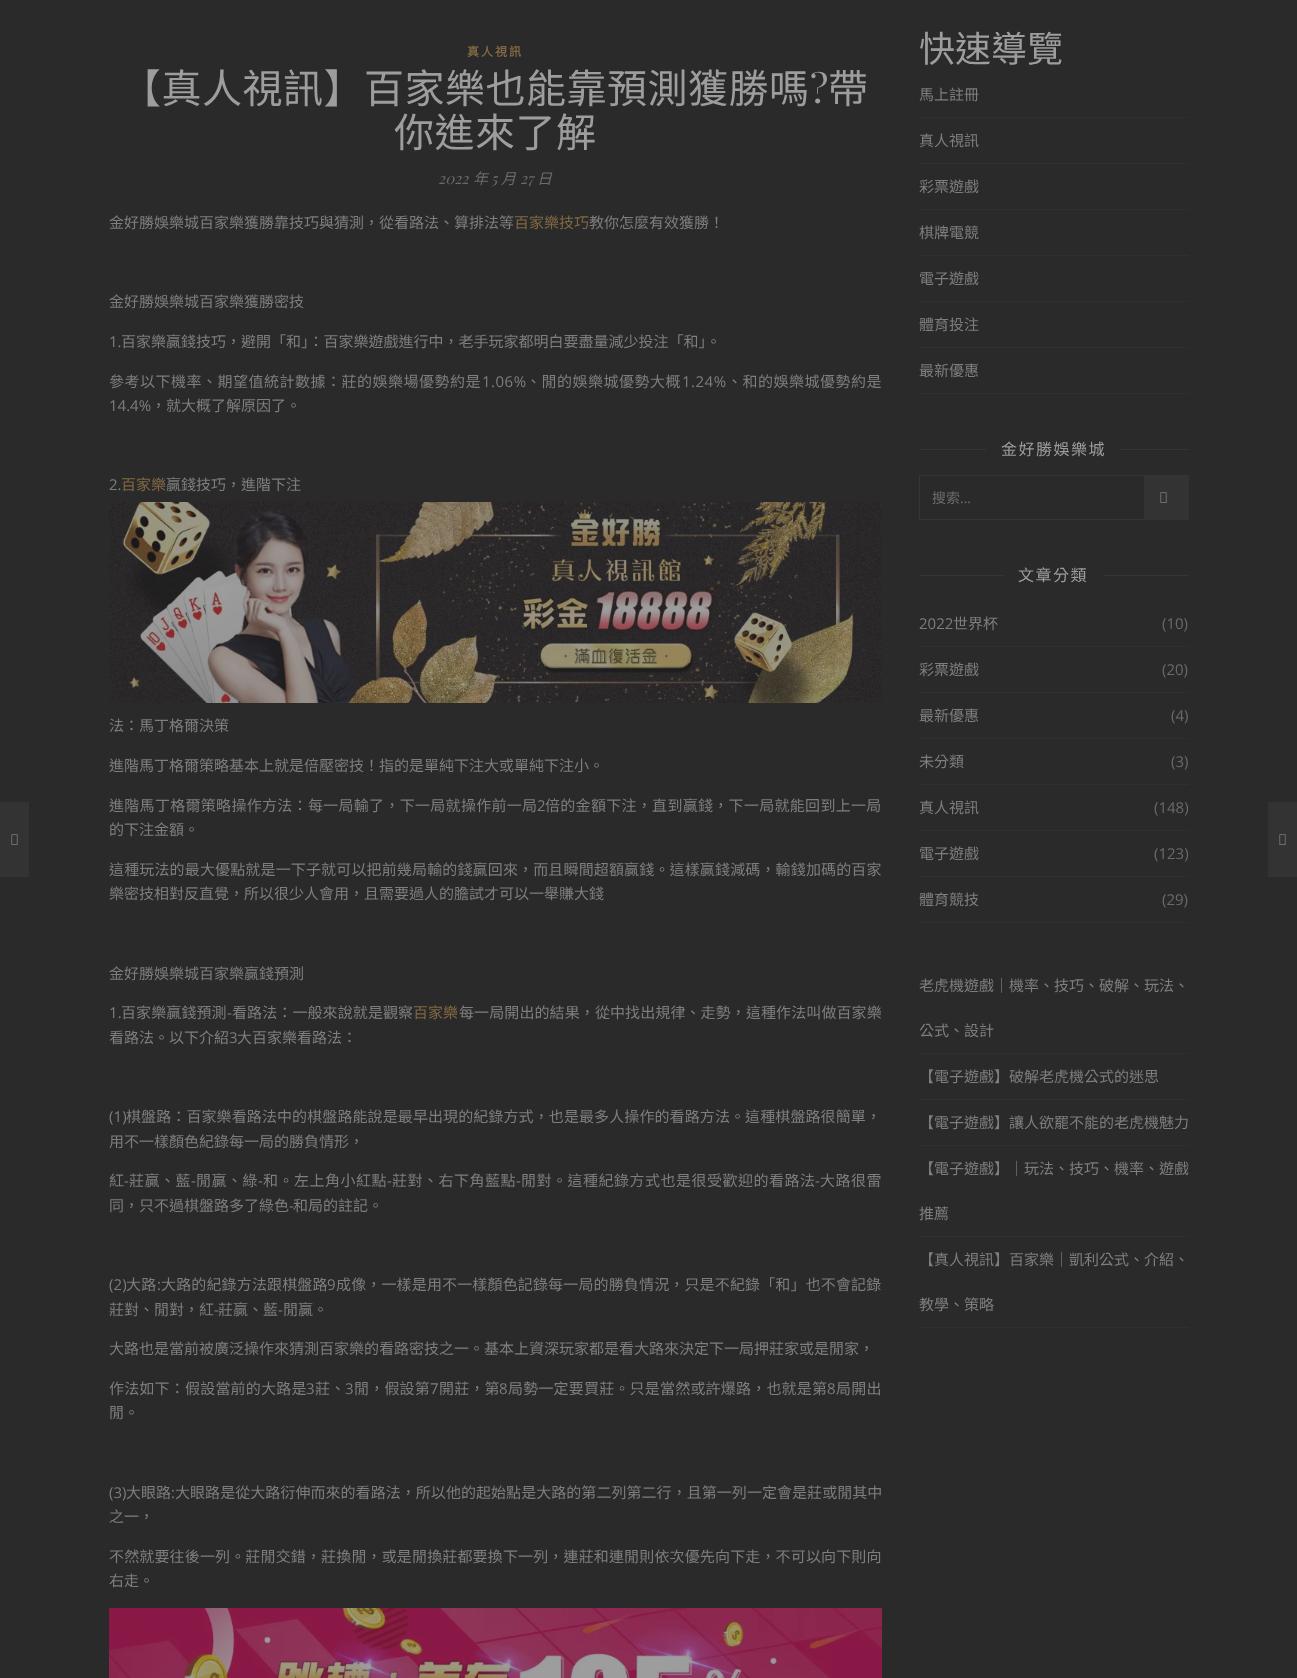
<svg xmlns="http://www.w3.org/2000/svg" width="1297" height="1678">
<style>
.a{font:bold 12px Noto Sans CJK TC;letter-spacing:2px;fill:#826943}
.b{font:40px Noto Sans CJK TC;letter-spacing:0.5px;fill:#9d9d9d}
.c{font:40px Playfair Display;letter-spacing:0.5px;fill:#9d9d9d}
.d{font:italic 15px Playfair Display;fill:#6b6b6b}
.e{font:italic 15px Noto Sans CJK TC;fill:#6b6b6b}
.f{font:15px Noto Sans CJK TC;fill:#7e7e7e}
.g{font:15px Noto Sans CJK TC;fill:#826943}
.h{font:15px Open Sans;fill:#7e7e7e}
.i{font:15px Noto Sans CJK TC;letter-spacing:0.5px;fill:#7e7e7e}
.j{font:15px Open Sans;letter-spacing:0.5px;fill:#7e7e7e}
.k{font:15px Noto Sans CJK TC;letter-spacing:0.3px;fill:#7e7e7e}
.l{font:15px Open Sans;letter-spacing:0.3px;fill:#7e7e7e}
.m{font:15px Noto Sans CJK TC;letter-spacing:0.15px;fill:#7e7e7e}
.n{font:15px Open Sans;letter-spacing:0.1px;fill:#7e7e7e}
.o{font:15px Noto Sans CJK TC;letter-spacing:0.1px;fill:#7e7e7e}
.p{font:15px Open Sans;letter-spacing:0.15px;fill:#7e7e7e}
.q{font:15px Noto Sans CJK TC;letter-spacing:0.2px;fill:#7e7e7e}
.r{font:15px Open Sans;letter-spacing:0.2px;fill:#7e7e7e}
.s{font:15px Open Sans;letter-spacing:0.05px;fill:#7e7e7e}
.t{font:15px Noto Sans CJK TC;letter-spacing:0.05px;fill:#7e7e7e}
.u{font:36px Noto Sans CJK TC;fill:#9d9d9d}
.v{font:16px Noto Sans CJK TC;letter-spacing:1.5px;fill:#9d9d9d}
.w{font:14px Noto Sans CJK TC;fill:#6b6b6b}
.x{font:14px Open Sans;fill:#6b6b6b}
.y{font:15px Open Sans;fill:#6b6b6b}
</style>
<rect width="100%" height="100%" fill="#2a2a2a"/>
<path fill="#333" d="M0 802h29v75H0z"/>
<image href="1.png" x="11" y="834" width="7" height="11"/>
<image href="2.png" x="109" y="502" width="773" height="201"/>
<image href="3.png" x="109" y="1608" width="773" height="70"/>
<path fill="#333" d="M1268 802h29v75H1268z"/>
<image href="1.png" x="1279" y="834" width="7" height="11"/>
<path fill="none" stroke="#363636" stroke-dasharray="1 1" d="M919 117.5h270"/>
<path fill="none" stroke="#363636" stroke-dasharray="1 1" d="M919 163.5h270"/>
<path fill="none" stroke="#363636" stroke-dasharray="1 1" d="M919 209.5h270"/>
<path fill="none" stroke="#363636" stroke-dasharray="1 1" d="M919 255.5h270"/>
<path fill="none" stroke="#363636" stroke-dasharray="1 1" d="M919 301.5h270"/>
<path fill="none" stroke="#363636" stroke-dasharray="1 1" d="M919 347.5h270"/>
<path fill="none" stroke="#363636" stroke-dasharray="1 1" d="M919 393.5h270"/>
<path fill="#363636" d="M919 449h67v1H919z"/>
<path fill="#363636" d="M1121 449h68v1H1121z"/>
<path fill="none" stroke="#363636" d="M919.5 475.5h269v44H919.5z"/>
<path fill="#333" d="M1144 475h45v45H1144z"/>
<image href="1.png" x="1160" y="492" width="7" height="11"/>
<path fill="#363636" d="M919 575h84v1H919z"/>
<path fill="#363636" d="M1104 575h85v1H1104z"/>
<path fill="none" stroke="#363636" stroke-dasharray="1 1" d="M919 646.5h270"/>
<path fill="none" stroke="#363636" stroke-dasharray="1 1" d="M919 692.5h270"/>
<path fill="none" stroke="#363636" stroke-dasharray="1 1" d="M919 738.5h270"/>
<path fill="none" stroke="#363636" stroke-dasharray="1 1" d="M919 784.5h270"/>
<path fill="none" stroke="#363636" stroke-dasharray="1 1" d="M919 830.5h270"/>
<path fill="none" stroke="#363636" stroke-dasharray="1 1" d="M919 876.5h270"/>
<path fill="none" stroke="#363636" stroke-dasharray="1 1" d="M919 922.5h270"/>
<path fill="none" stroke="#363636" stroke-dasharray="1 1" d="M919 1053.5h270"/>
<path fill="none" stroke="#363636" stroke-dasharray="1 1" d="M919 1099.5h270"/>
<path fill="none" stroke="#363636" stroke-dasharray="1 1" d="M919 1145.5h270"/>
<path fill="none" stroke="#363636" stroke-dasharray="1 1" d="M919 1236.5h270"/>
<path fill="none" stroke="#363636" stroke-dasharray="1 1" d="M919 1327.5h270"/>
<text class="a" x="467" y="56">真人視訊</text>
<text class="b" x="121" y="103">【真人視訊】百家樂也能靠預測獲勝嗎</text>
<text class="c" x="810" y="103">?</text>
<text class="b" x="828" y="103">帶</text>
<text class="b" x="394" y="147">你進來了解</text>
<text class="d" x="438" y="184">2022</text>
<text class="e" x="473" y="184">年</text>
<text class="d" x="491" y="184">5</text>
<text class="e" x="501" y="184">月</text>
<text class="d" x="520" y="184">27</text>
<text class="e" x="537" y="184">日</text>
<text class="f" x="109" y="228">金好勝娛樂城百家樂獲勝靠技巧與猜測，從看路法、算排法等</text>
<text class="g" x="514" y="228">百家樂技巧</text>
<text class="f" x="589" y="228">教你怎麼有效獲勝！</text>
<text class="f" x="109" y="307">金好勝娛樂城百家樂獲勝密技</text>
<text class="h" x="109" y="347">1.</text>
<text class="f" x="121" y="347">百家樂贏錢技巧，避開「和」：百家樂遊戲進行中，老手玩家都明白要盡量減少投注「和」。</text>
<text class="i" x="109" y="387">參考以下機率、期望值統計數據：莊的娛樂場優勢約是</text>
<text class="j" x="482" y="387">1.06%</text>
<text class="i" x="526" y="387">、閒的娛樂城優勢大概</text>
<text class="j" x="682" y="387">1.24%</text>
<text class="i" x="727" y="387">、和的娛樂城優勢約是</text>
<text class="h" x="109" y="411">14.4%</text>
<text class="f" x="151" y="411">，就大概了解原因了。</text>
<text class="h" x="109" y="490">2.</text>
<text class="g" x="121" y="490">百家樂</text>
<text class="f" x="166" y="490">贏錢技巧，進階下注</text>
<text class="f" x="109" y="731">法：馬丁格爾決策</text>
<text class="f" x="109" y="771">進階馬丁格爾策略基本上就是倍壓密技！指的是單純下注大或單純下注小。</text>
<text class="k" x="109" y="811">進階馬丁格爾策略操作方法：每一局輸了，下一局就操作前一局</text>
<text class="l" x="537" y="811">2</text>
<text class="k" x="545" y="811">倍的金額下注，直到贏錢，下一局就能回到上一局</text>
<text class="f" x="109" y="835">的下注金額。</text>
<text class="m" x="109" y="875">這種玩法的最大優點就是一下子就可以把前幾局輸的錢贏回來，而且瞬間超額贏錢。這樣贏錢減碼，輸錢加碼的百家</text>
<text class="f" x="109" y="899">樂密技相對反直覺，所以很少人會用，且需要過人的膽試才可以一舉賺大錢</text>
<text class="f" x="109" y="979">金好勝娛樂城百家樂贏錢預測</text>
<text class="n" x="109" y="1018">1.</text>
<text class="o" x="121" y="1018">百家樂贏錢預測</text>
<text class="n" x="227" y="1018">-</text>
<text class="o" x="232" y="1018">看路法：一般來說就是觀察</text>
<text class="g" x="413" y="1018">百家樂</text>
<text class="o" x="459" y="1018">每一局開出的結果，從中找出規律、走勢，這種作法叫做百家樂</text>
<text class="f" x="109" y="1043">看路法。以下介紹</text>
<text class="h" x="229" y="1043">3</text>
<text class="f" x="237" y="1043">大百家樂看路法：</text>
<text class="n" x="109" y="1122">(1)</text>
<text class="o" x="126" y="1122">棋盤路：百家樂看路法中的棋盤路能說是最早出現的紀錄方式，也是最多人操作的看路方法。這種棋盤路很簡單，</text>
<text class="f" x="109" y="1147">用不一樣顏色紀錄每一局的勝負情形，</text>
<text class="i" x="109" y="1186">紅</text>
<text class="j" x="124" y="1186">-</text>
<text class="i" x="129" y="1186">莊贏、藍</text>
<text class="j" x="191" y="1186">-</text>
<text class="i" x="196" y="1186">閒贏、綠</text>
<text class="j" x="258" y="1186">-</text>
<text class="i" x="263" y="1186">和。左上角小紅點</text>
<text class="j" x="387" y="1186">-</text>
<text class="i" x="392" y="1186">莊對、右下角藍點</text>
<text class="j" x="516" y="1186">-</text>
<text class="i" x="521" y="1186">閒對。這種紀錄方式也是很受歡迎的看路法</text>
<text class="j" x="815" y="1186">-</text>
<text class="i" x="820" y="1186">大路很雷</text>
<text class="f" x="109" y="1211">同，只不過棋盤路多了綠色</text>
<text class="h" x="289" y="1211">-</text>
<text class="f" x="293" y="1211">和局的註記。</text>
<text class="p" x="109" y="1290">(2)</text>
<text class="m" x="126" y="1290">大路</text>
<text class="p" x="157" y="1290">:</text>
<text class="m" x="161" y="1290">大路的紀錄方法跟棋盤路</text>
<text class="p" x="327" y="1290">9</text>
<text class="m" x="336" y="1290">成像，一樣是用不一樣顏色記錄每一局的勝負情況，只是不紀錄「和」也不會記錄</text>
<text class="f" x="109" y="1315">莊對、閒對，紅</text>
<text class="h" x="214" y="1315">-</text>
<text class="f" x="218" y="1315">莊贏、藍</text>
<text class="h" x="278" y="1315">-</text>
<text class="f" x="283" y="1315">閒贏。</text>
<text class="f" x="109" y="1354">大路也是當前被廣泛操作來猜測百家樂的看路密技之一。基本上資深玩家都是看大路來決定下一局押莊家或是閒家，</text>
<text class="q" x="109" y="1394">作法如下：假設當前的大路是</text>
<text class="r" x="306" y="1394">3</text>
<text class="q" x="315" y="1394">莊、</text>
<text class="r" x="345" y="1394">3</text>
<text class="q" x="354" y="1394">閒，假設第</text>
<text class="r" x="430" y="1394">7</text>
<text class="q" x="439" y="1394">開莊，第</text>
<text class="r" x="499" y="1394">8</text>
<text class="q" x="508" y="1394">局勢一定要買莊。只是當然或許爆路，也就是第</text>
<text class="r" x="827" y="1394">8</text>
<text class="q" x="836" y="1394">局開出</text>
<text class="f" x="109" y="1418">閒。</text>
<text class="s" x="109" y="1498">(3)</text>
<text class="t" x="126" y="1498">大眼路</text>
<text class="s" x="171" y="1498">:</text>
<text class="t" x="175" y="1498">大眼路是從大路衍伸而來的看路法，所以他的起始點是大路的第二列第二行，且第一列一定會是莊或閒其中</text>
<text class="f" x="109" y="1522">之一，</text>
<text class="m" x="109" y="1562">不然就要往後一列。莊閒交錯，莊換閒，或是閒換莊都要換下一列，連莊和連閒則依次優先向下走，不可以向下則向</text>
<text class="f" x="109" y="1586">右走。</text>
<text class="u" x="919" y="62">快速導覽</text>
<text class="f" x="919" y="100">馬上註冊</text>
<text class="f" x="919" y="146">真人視訊</text>
<text class="f" x="919" y="192">彩票遊戲</text>
<text class="f" x="919" y="238">棋牌電競</text>
<text class="f" x="919" y="284">電子遊戲</text>
<text class="f" x="919" y="330">體育投注</text>
<text class="f" x="919" y="376">最新優惠</text>
<text class="v" x="1001" y="455">金好勝娛樂城</text>
<text class="w" x="932" y="503">搜索</text>
<text class="x" x="960" y="503">...</text>
<text class="v" x="1018" y="581">文章分類</text>
<text class="h" x="919" y="629">2022</text>
<text class="f" x="953" y="629">世界杯</text>
<text class="y" x="1162" y="629">(10)</text>
<text class="f" x="919" y="675">彩票遊戲</text>
<text class="y" x="1162" y="675">(20)</text>
<text class="f" x="919" y="721">最新優惠</text>
<text class="y" x="1171" y="721">(4)</text>
<text class="f" x="919" y="767">未分類</text>
<text class="y" x="1171" y="767">(3)</text>
<text class="f" x="919" y="813">真人視訊</text>
<text class="y" x="1154" y="813">(148)</text>
<text class="f" x="919" y="859">電子遊戲</text>
<text class="y" x="1154" y="859">(123)</text>
<text class="f" x="919" y="905">體育競技</text>
<text class="y" x="1162" y="905">(29)</text>
<text class="f" x="919" y="991">老虎機遊戲｜機率、技巧、破解、玩法、</text>
<text class="f" x="919" y="1036">公式、設計</text>
<text class="f" x="919" y="1082">【電子遊戲】破解老虎機公式的迷思</text>
<text class="f" x="919" y="1128">【電子遊戲】讓人欲罷不能的老虎機魅力</text>
<text class="f" x="919" y="1174">【電子遊戲】｜玩法、技巧、機率、遊戲</text>
<text class="f" x="919" y="1219">推薦</text>
<text class="f" x="919" y="1265">【真人視訊】百家樂｜凱利公式、介紹、</text>
<text class="f" x="919" y="1310">教學、策略</text>
</svg>
